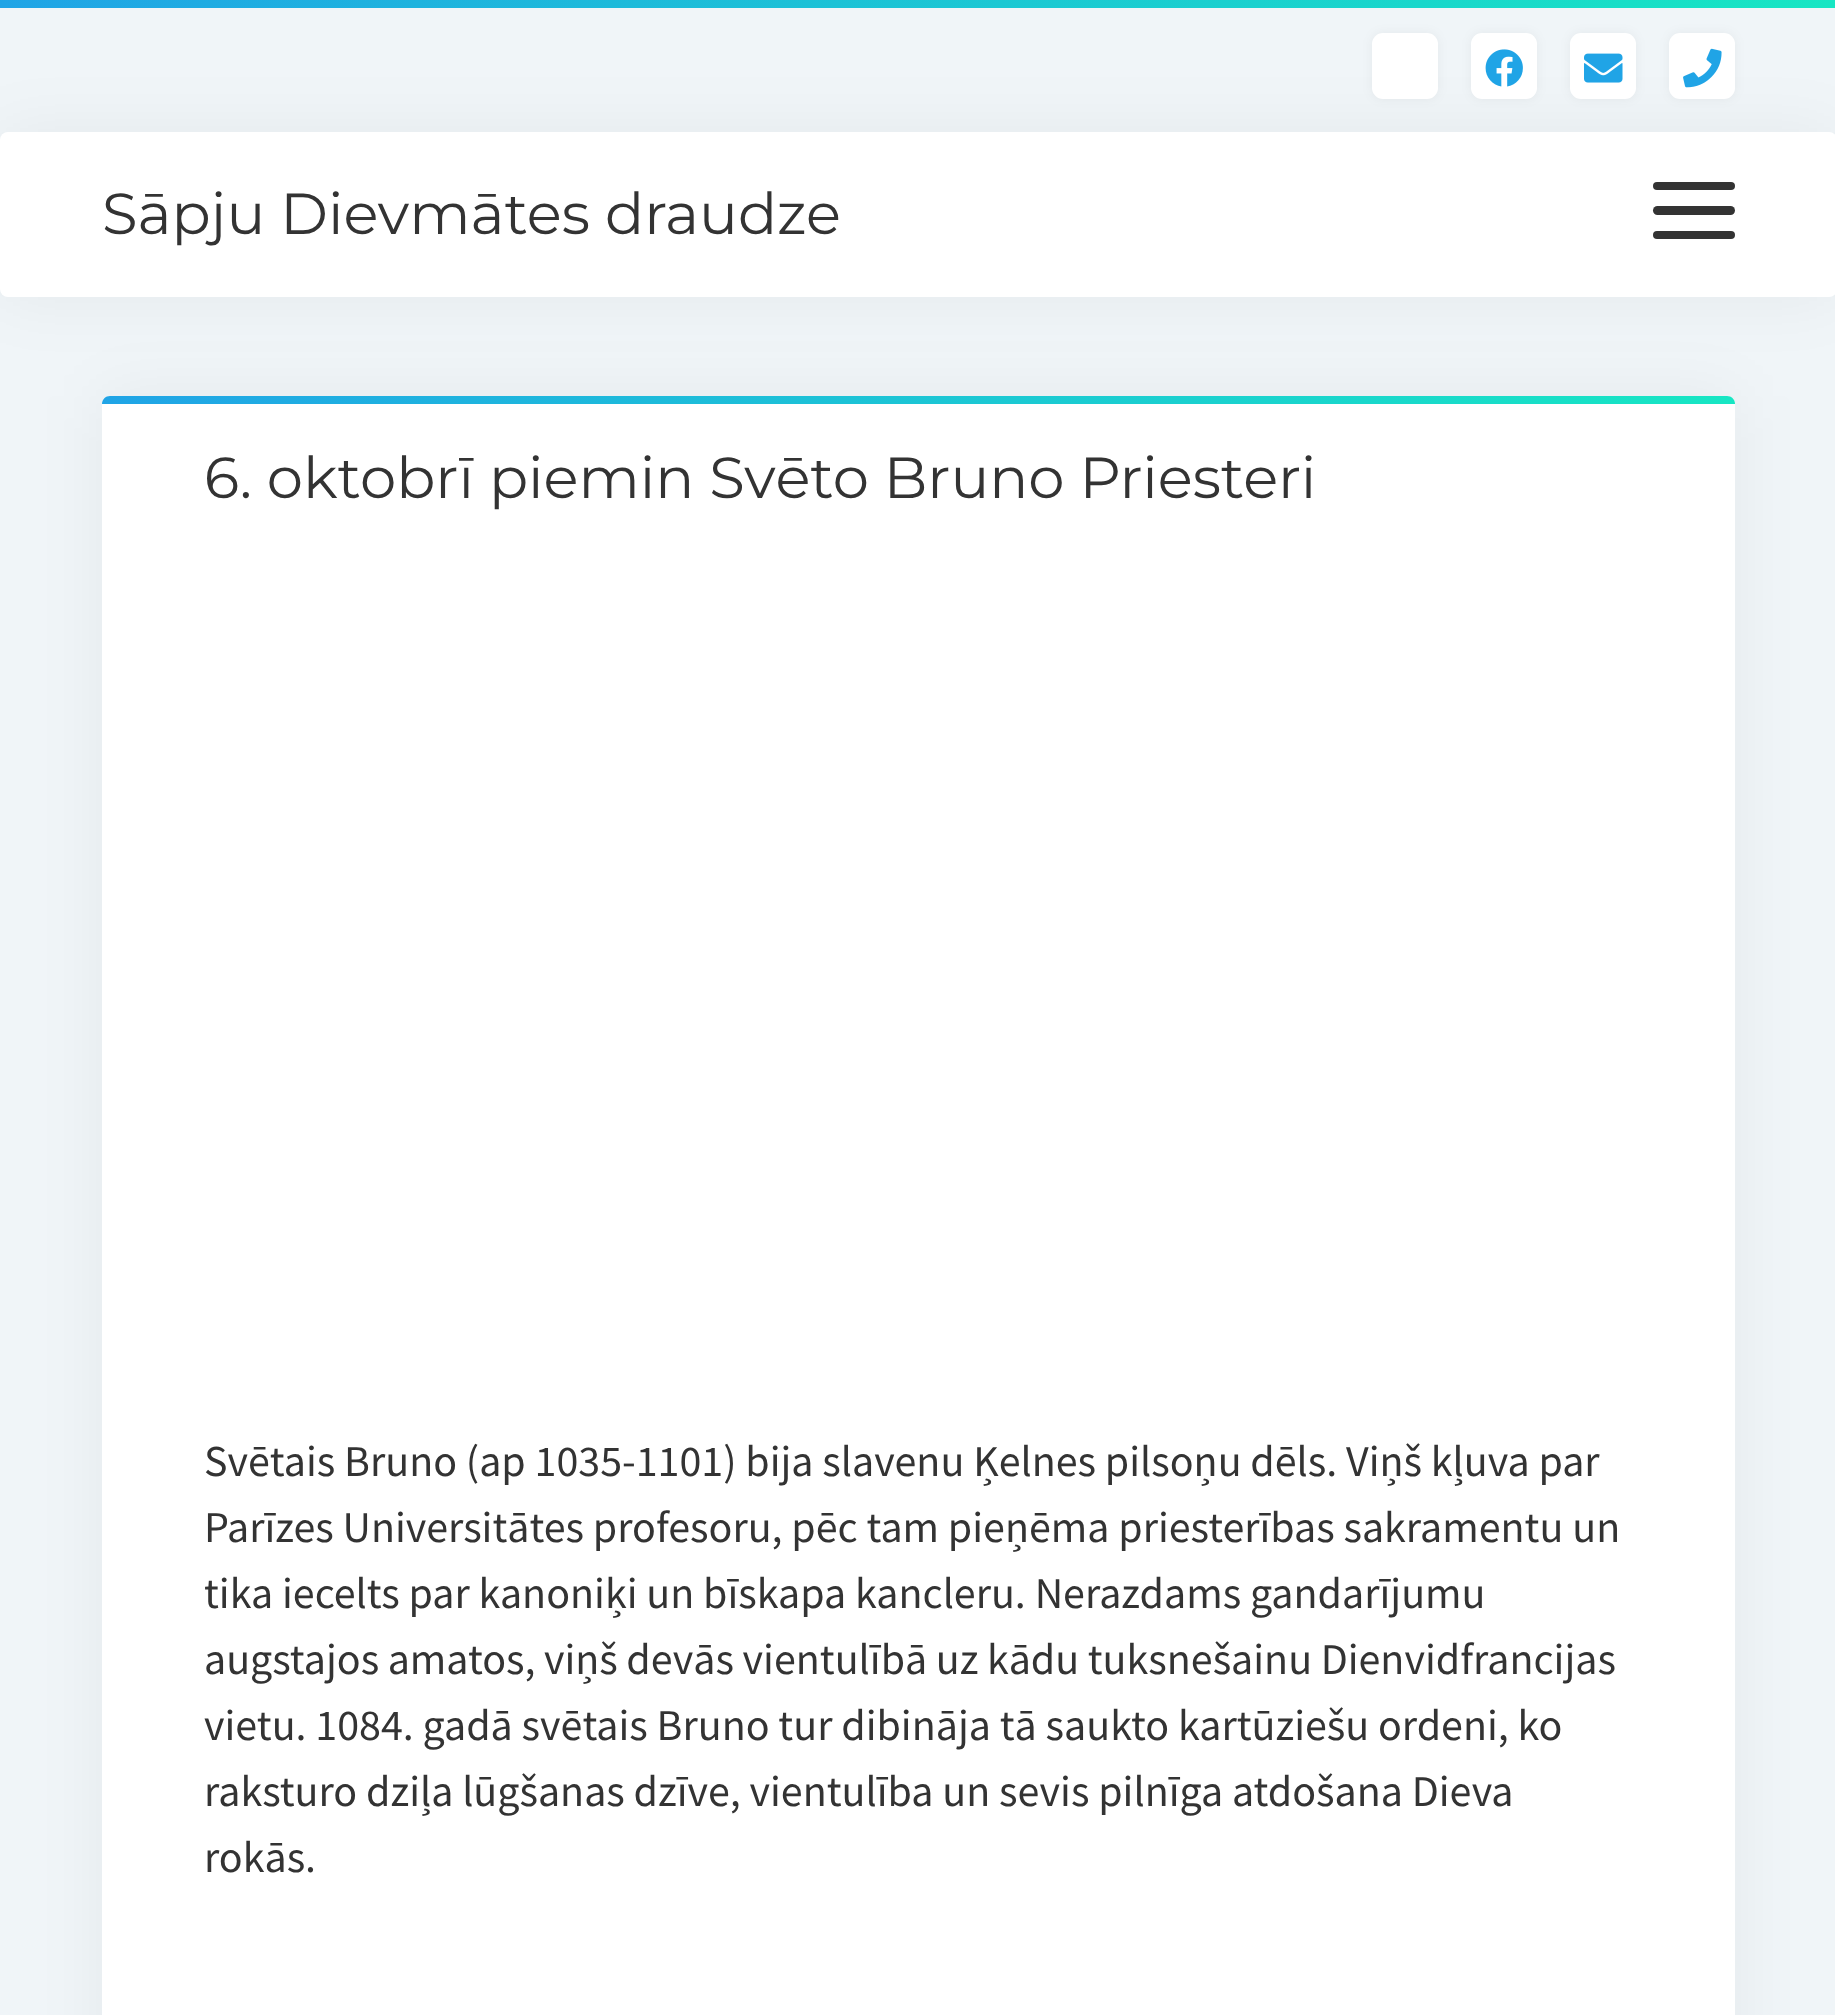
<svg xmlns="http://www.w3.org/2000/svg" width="1835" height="2015">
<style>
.a{font:100 57.75px Montserrat;fill:#333}
.b{font:44px Source Sans Pro;fill:#333}
</style>
<defs>
<linearGradient id="g1" gradientUnits="userSpaceOnUse" x1="0" y1="4.1" x2="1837" y2="4.1"><stop offset="0" stop-color="#20a4e6"/><stop offset="1" stop-color="#17e6c3"/></linearGradient>
<linearGradient id="g2" gradientUnits="userSpaceOnUse" x1="102" y1="400" x2="1735" y2="400"><stop offset="0" stop-color="#20a4e6"/><stop offset="1" stop-color="#17e6c3"/></linearGradient>
</defs>
<rect width="100%" height="100%" fill="#f0f5f8"/>
<path fill="url(#g1)" d="M0 0h1835v8H0z"/>
<rect fill="#0000000d" filter="blur(5.5px)" x="1372" y="33" width="66" height="66" rx="11"/>
<rect fill="#0000000d" filter="blur(33px)" y="132" width="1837" height="165" rx="8"/>
<rect fill="#fff" x="1372" y="33" width="66" height="66" rx="11"/>
<rect fill="#0000000d" filter="blur(5.5px)" x="1471" y="33" width="66" height="66" rx="11"/>
<rect fill="#fff" x="1471" y="33" width="66" height="66" rx="11"/>
<image href="1.png" x="1485" y="49" width="38" height="38"/>
<rect fill="#0000000d" filter="blur(5.5px)" x="1570" y="33" width="66" height="66" rx="11"/>
<rect fill="#fff" x="1570" y="33" width="66" height="66" rx="11"/>
<image href="2.png" x="1584" y="53" width="39" height="30"/>
<rect fill="#0000000d" filter="blur(5.5px)" x="1669" y="33" width="66" height="66" rx="11"/>
<rect fill="#fff" x="1669" y="33" width="66" height="66" rx="11"/>
<image href="3.png" x="1683" y="48" width="39" height="40"/>
<rect fill="#fff" y="132" width="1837" height="165" rx="8"/>
<rect fill="#333" x="1653" y="182" width="82" height="8" rx="4"/>
<rect fill="#333" x="1653" y="206" width="82" height="9" rx="4.5"/>
<rect fill="#333" x="1653" y="231" width="82" height="8" rx="4"/>
<rect fill="#0000000d" filter="blur(33px)" x="102" y="396" width="1633" height="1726" rx="8"/>
<rect fill="#fff" x="102" y="396" width="1633" height="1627" rx="8"/>
<path fill="url(#g2)" d="M110 396h1617c4.5 0 8 3.5 8 8h-1633c0-4.5 3.5-8 8-8z"/>
<text class="a" x="102" y="234">Sāpju Dievmātes draudze</text>
<text class="a" x="204" y="498" word-spacing="-0.25">6. oktobrī piemin Svēto Bruno Priesteri</text>
<text class="b" x="204" y="1476">Svētais Bruno (ap 1035-1101) bija slavenu Ķelnes pilsoņu dēls. Viņš kļuva par</text>
<text class="b" x="204" y="1542">Parīzes Universitātes profesoru, pēc tam pieņēma priesterības sakramentu un</text>
<text class="b" x="204" y="1608">tika iecelts par kanoniķi un bīskapa kancleru. Nerazdams gandarījumu</text>
<text class="b" x="204" y="1674" word-spacing="-0.25">augstajos amatos, viņš devās vientulībā uz kādu tuksnešainu Dienvidfrancijas</text>
<text class="b" x="204" y="1740">vietu. 1084. gadā svētais Bruno tur dibināja tā saukto kartūziešu ordeni, ko</text>
<text class="b" x="204" y="1806">raksturo dziļa lūgšanas dzīve, vientulība un sevis pilnīga atdošana Dieva</text>
<text class="b" x="204" y="1872">rokās.</text>
</svg>
